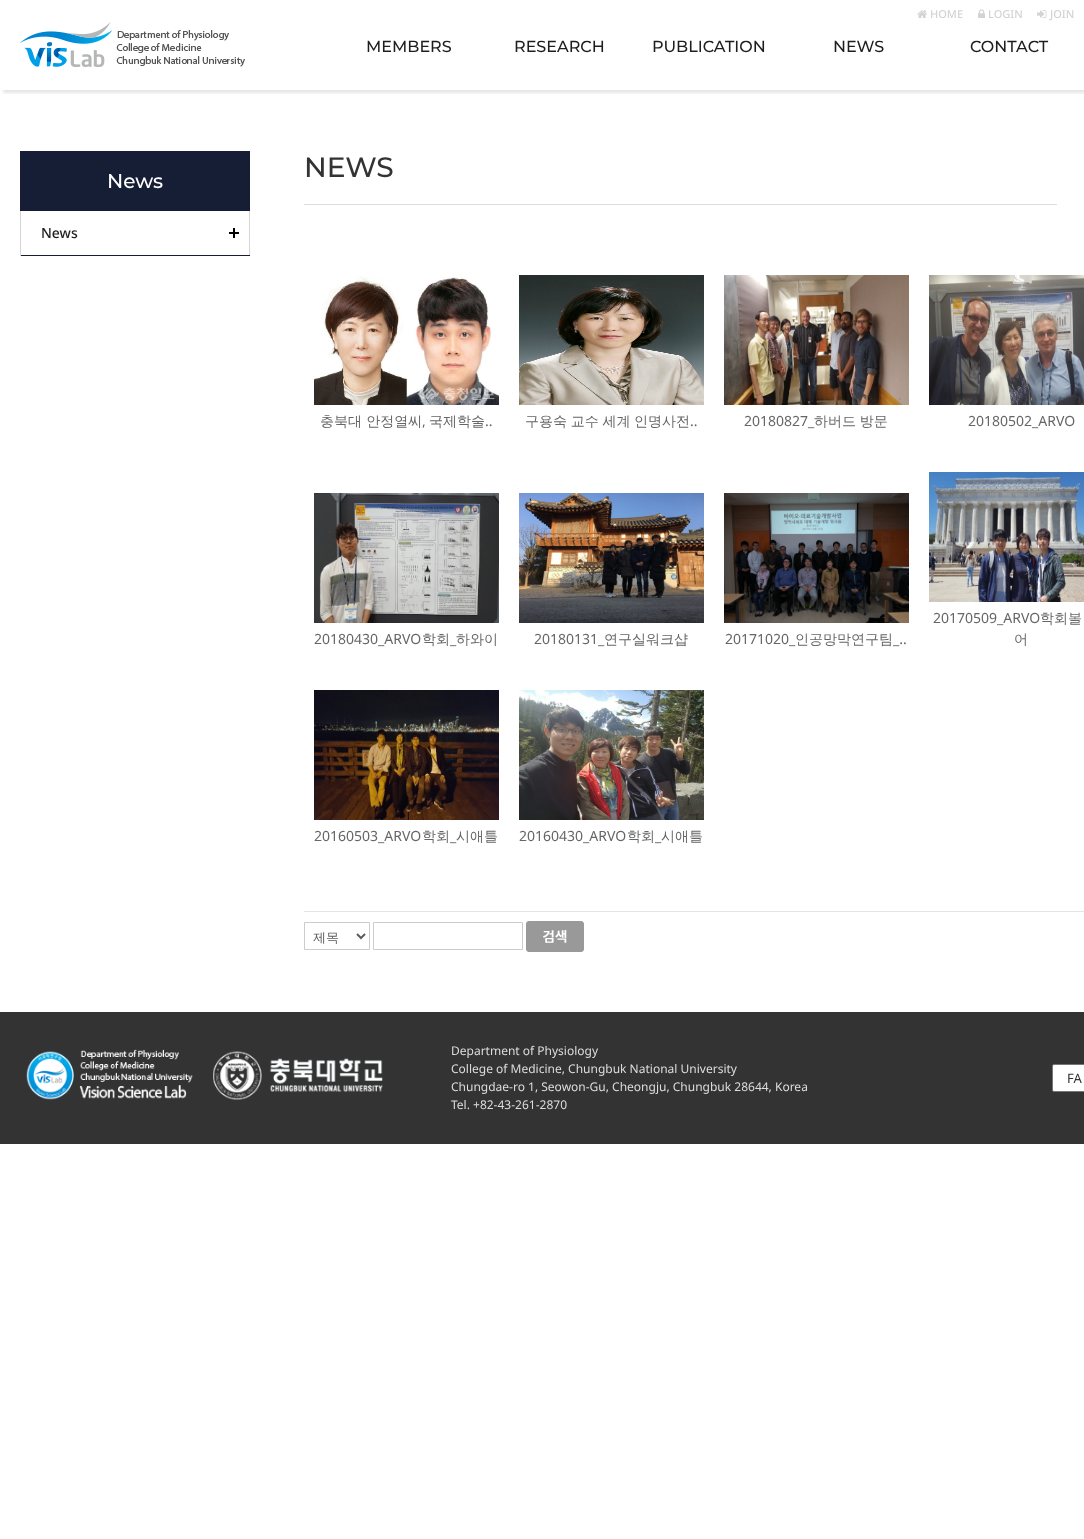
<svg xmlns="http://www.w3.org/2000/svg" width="1084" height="1539">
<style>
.a{font:500 11px Noto Sans;fill:#d3d3d3}
.b{font:500 16px Montserrat;fill:#1e1e1e}
.c{font:500 20px Montserrat;fill:#fff}
.d{font:500 14px Noto Sans;fill:#1e1e1e}
.e{font:500 28px Montserrat;fill:#333}
.f{font:500 14px WenQuanYi Zen Hei;fill:#666}
.g{font:14px Noto Sans;fill:#666}
.h{font:500 13px WenQuanYi Zen Hei;fill:#5d5d5d}
.i{font:12px Noto Sans;fill:#ddd}
.j{font:13px Noto Sans;fill:#333}
</style>
<defs>
<clipPath id="clip1"><path d="M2 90h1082v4H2z"/></clipPath>
</defs>
<rect width="100%" height="100%" fill="#fff"/>
<g clip-path="url(#clip1)">
<path fill="#0000001a" filter="blur(1.5px)" d="M3 3h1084v90H3z"/>
</g>
<image href="1.png" x="917" y="10" width="10" height="8"/>
<image href="2.png" x="978" y="9" width="7" height="9"/>
<image href="3.png" x="1037" y="10" width="10" height="8"/>
<image href="4.png" x="20" y="22" width="225" height="45"/>
<path fill="#161e36" d="M20 151h230v60H20z"/>
<image href="5.png" x="229" y="228" width="10" height="10"/>
<path fill="#d5d5d5" d="M249 211h1v45H249z"/>
<path fill="#161e36" d="M20 255h230v1H20z"/>
<path fill="#d5d5d5" d="M20 211h1v45H20z"/>
<path fill="#ddd" d="M304 204h753v1H304z"/>
<image href="6.png" x="314" y="276" width="185" height="129"/>
<image href="7.png" x="519" y="275" width="185" height="130"/>
<image href="8.png" x="724" y="275" width="185" height="130"/>
<image href="9.png" x="929" y="275" width="155" height="130"/>
<image href="10.png" x="314" y="493" width="185" height="130"/>
<image href="11.png" x="519" y="493" width="185" height="130"/>
<image href="12.png" x="724" y="493" width="185" height="130"/>
<image href="13.png" x="929" y="472" width="155" height="130"/>
<image href="14.png" x="314" y="690" width="185" height="130"/>
<image href="15.png" x="519" y="690" width="185" height="130"/>
<path fill="#e5e5e5" d="M304 911h780v1H304z"/>
<path fill="none" stroke="#ccc" d="M304.5 922.5h65v27H304.5z"/>
<path fill="none" stroke="#5d5d5d" stroke-width="2" d="M357 934l4 4l4-4"/>
<path fill="none" stroke="#ccc" d="M373.5 922.5h149v27H373.5z"/>
<image href="16.png" x="526" y="921" width="58" height="31"/>
<path fill="#333" d="M0 1012h1084v132H0z"/>
<image href="17.png" x="26" y="1049" width="167" height="52"/>
<image href="18.png" x="213" y="1051" width="170" height="49"/>
<rect fill="#fff" stroke="#767676" x="1052.5" y="1064.5" width="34" height="27" rx="1.5"/>
<text class="a" x="930" y="18">HOME</text>
<text class="a" x="988" y="18">LOGIN</text>
<text class="a" x="1050" y="18">JOIN</text>
<text class="b" x="366" y="52">MEMBERS</text>
<text class="b" x="514" y="52">RESEARCH</text>
<text class="b" x="652" y="52">PUBLICATION</text>
<text class="b" x="833" y="52">NEWS</text>
<text class="b" x="970" y="52">CONTACT</text>
<text class="c" x="107" y="188">News</text>
<text class="d" x="41" y="238">News</text>
<text class="e" x="304" y="177">NEWS</text>
<text class="f" x="320" y="426">충북대 안정열씨</text>
<text class="g" x="422" y="426">,</text>
<text class="f" x="429" y="426">국제학술</text>
<text class="g" x="485" y="426">..</text>
<text class="f" x="525" y="426" word-spacing="-0.5">구용숙 교수 세계 인명사전</text>
<text class="g" x="690" y="426">..</text>
<text class="g" x="744" y="426">20180827_</text>
<text class="f" x="814" y="426" word-spacing="-0.5">하버드 방문</text>
<text class="g" x="968" y="426">20180502_ARVO</text>
<text class="g" x="314" y="644">20180430_ARVO</text>
<text class="f" x="422" y="644">학회</text>
<text class="g" x="450" y="644">_</text>
<text class="f" x="456" y="644">하와이</text>
<text class="g" x="534" y="644">20180131_</text>
<text class="f" x="604" y="644">연구실워크샵</text>
<text class="g" x="725" y="644">20171020_</text>
<text class="f" x="795" y="644">인공망막연구팀</text>
<text class="g" x="893" y="644">_..</text>
<text class="g" x="933" y="623">20170509_ARVO</text>
<text class="f" x="1040" y="623">학회볼</text>
<text class="f" x="1014" y="644">어</text>
<text class="g" x="314" y="841">20160503_ARVO</text>
<text class="f" x="422" y="841">학회</text>
<text class="g" x="450" y="841">_</text>
<text class="f" x="456" y="841">시애틀</text>
<text class="g" x="519" y="841">20160430_ARVO</text>
<text class="f" x="627" y="841">학회</text>
<text class="g" x="655" y="841">_</text>
<text class="f" x="661" y="841">시애틀</text>
<text class="h" x="313" y="942">제목</text>
<text class="i" x="451" y="1055">Department of Physiology</text>
<text class="i" x="451" y="1073">College of Medicine, Chungbuk National University</text>
<text class="i" x="451" y="1091">Chungdae-ro 1, Seowon-Gu, Cheongju, Chungbuk 28644, Korea</text>
<text class="i" x="451" y="1109">Tel. +82-43-261-2870</text>
<text class="j" x="1067" y="1083">FA</text>
</svg>
